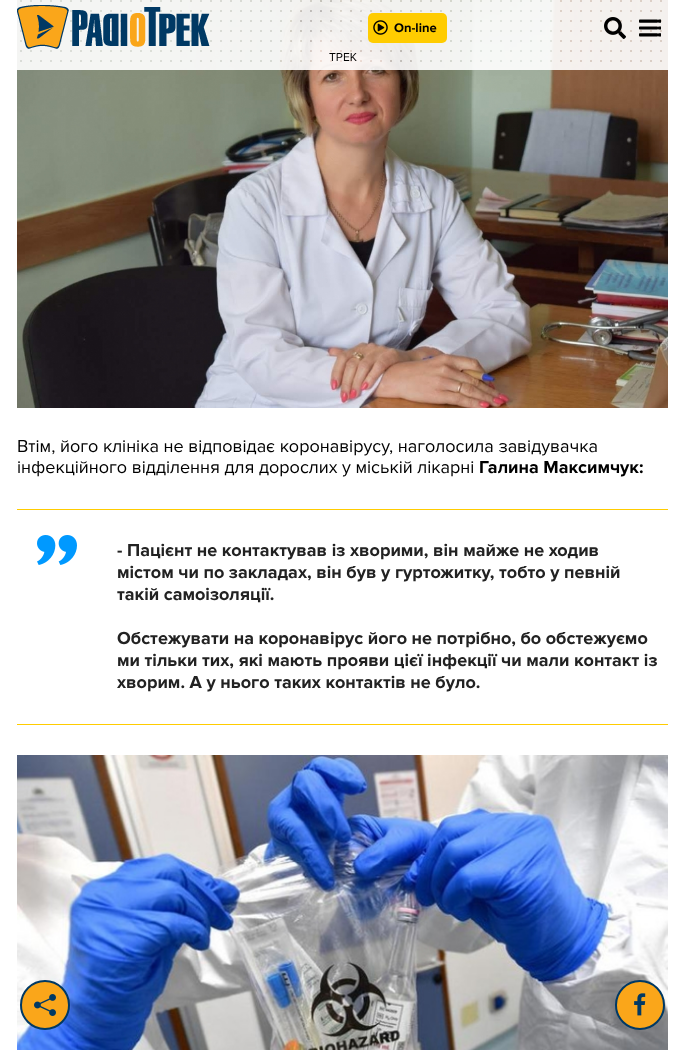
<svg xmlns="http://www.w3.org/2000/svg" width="685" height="1050">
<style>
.a{font:bold 13px Proxima Nova;fill:#000}
.b{font:12px Proxima Nova;fill:#000}
.c{font:18px Proxima Nova;fill:#000}
.d{font:bold 18px Proxima Nova;fill:#000}
.e{font:bold 18px Proxima Nova;fill:#222}
</style>
<rect width="100%" height="100%" fill="#fff"/>
<image href="6.png" x="17" y="0" width="651" height="408"/>
<image href="1.png" x="17" y="0" width="651" height="70"/>
<image href="2.png" x="17" y="5" width="193" height="44"/>
<rect fill="#fc0" x="368" y="13" width="79" height="30" rx="5"/>
<image href="3.png" x="373" y="20" width="15" height="15"/>
<image href="4.png" x="604" y="17" width="22" height="22"/>
<image href="5.png" x="639" y="19" width="22" height="18"/>
<path fill="#fc0" d="M17 509h651v1H17z"/>
<path fill="#fc0" d="M17 724h651v1H17z"/>
<image href="7.png" x="37" y="535" width="40" height="30"/>
<image href="8.png" x="17" y="755" width="651" height="295"/>
<circle fill="#faa61a" stroke="#003964" stroke-width="2" cx="45" cy="1005" r="24"/>
<image href="9.png" x="34" y="994" width="22" height="22"/>
<circle fill="#faa61a" stroke="#003964" stroke-width="2" cx="640" cy="1005" r="24"/>
<image href="10.png" x="634" y="993" width="12" height="23"/>
<text class="a" x="394" y="32">On-line</text>
<text class="b" x="329" y="61">ТРЕК</text>
<text class="c" x="17" y="452">Втім, його клініка не відповідає коронавірусу, наголосила завідувачка</text>
<text class="c" x="17" y="473">інфекційного відділення для дорослих у міській лікарні</text>
<text class="d" x="479" y="473">Галина Максимчук:</text>
<text class="e" x="117" y="556">- Пацієнт не контактував із хворими, він майже не ходив</text>
<text class="e" x="117" y="578">містом чи по закладах, він був у гуртожитку, тобто у певній</text>
<text class="e" x="117" y="600">такій самоізоляції.</text>
<text class="e" x="117" y="644">Обстежувати на коронавірус його не потрібно, бо обстежуємо</text>
<text class="e" x="117" y="666">ми тільки тих, які мають прояви цієї інфекції чи мали контакт із</text>
<text class="e" x="117" y="688">хворим. А у нього таких контактів не було.</text>
</svg>
